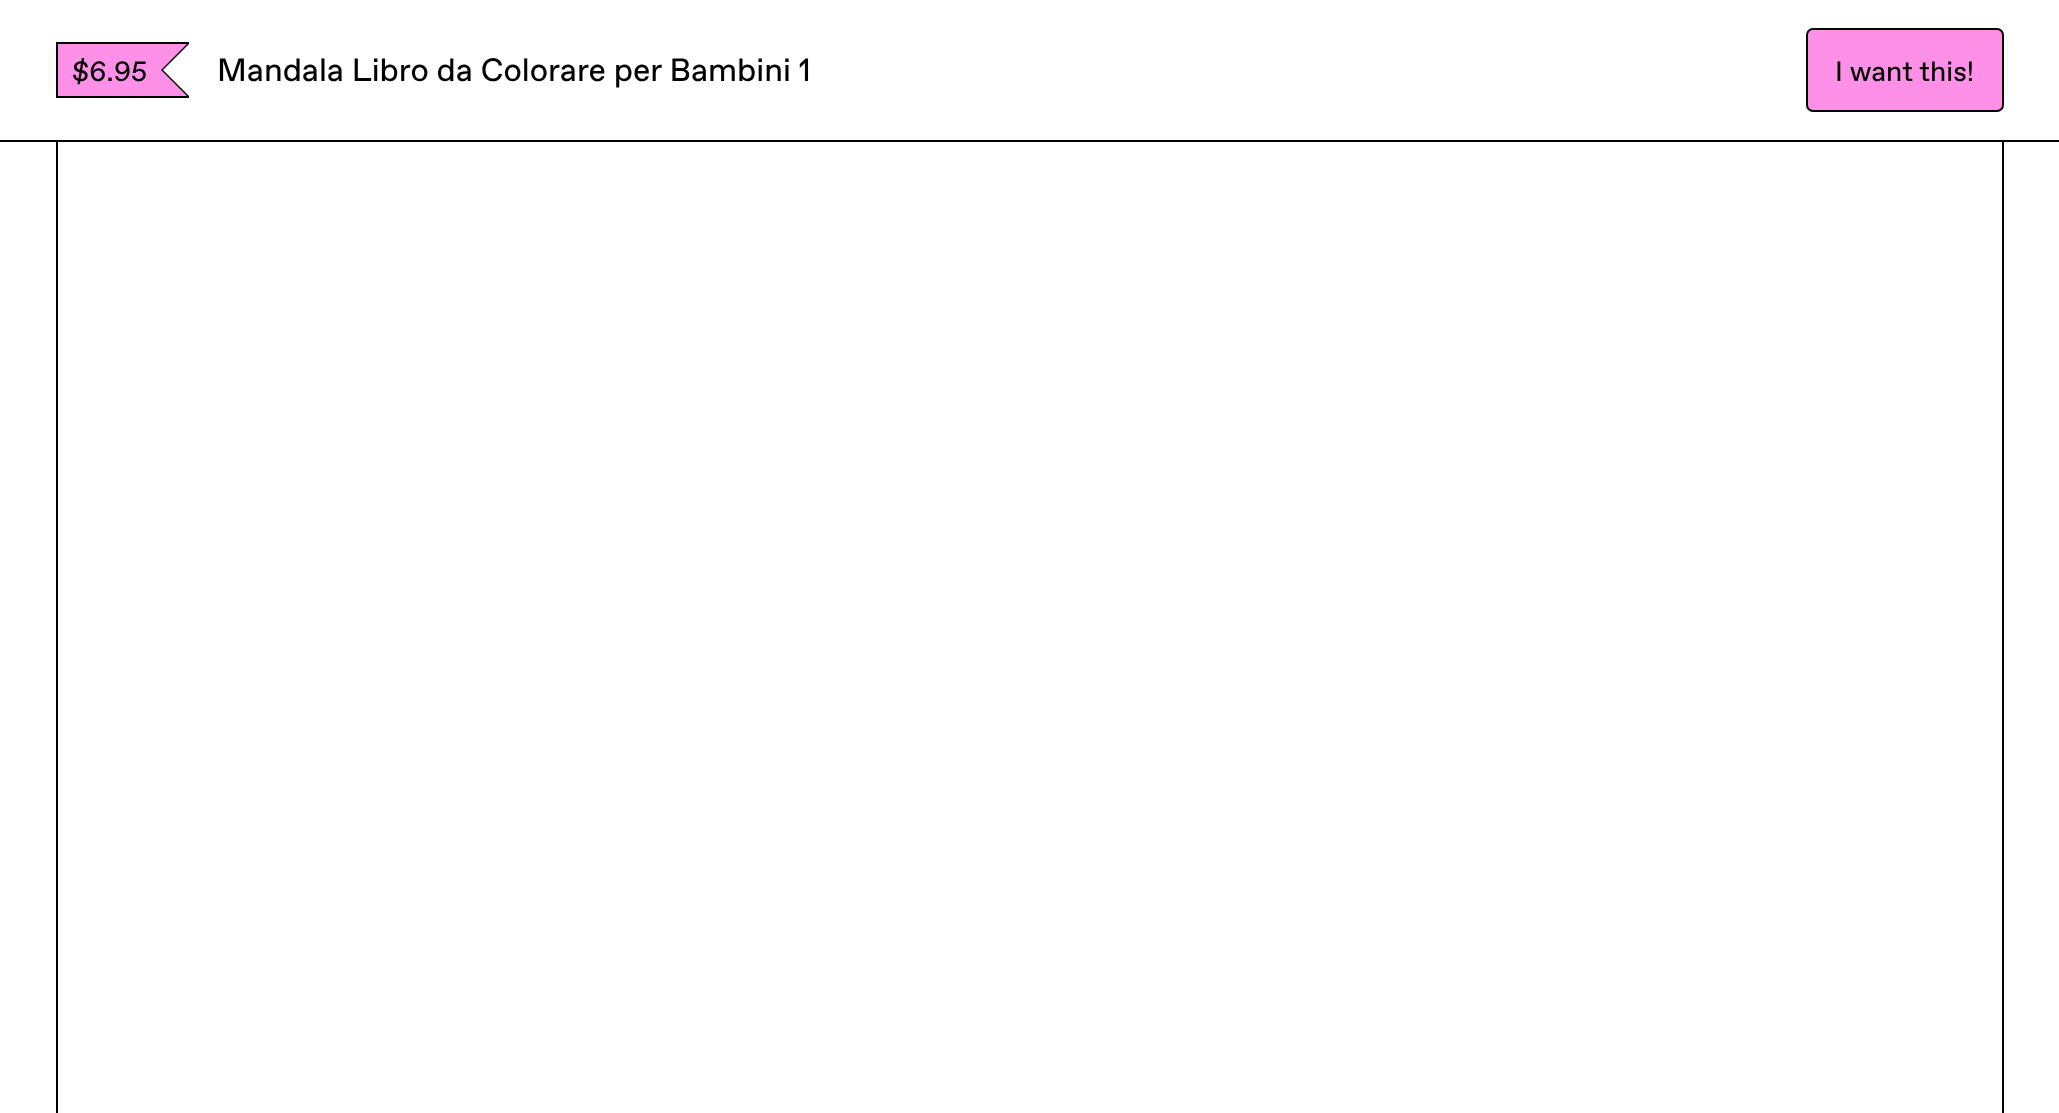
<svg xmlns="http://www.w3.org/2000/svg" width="2059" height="1113">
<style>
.a{font:28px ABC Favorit;fill:#000}
.b{font:32.25px ABC Favorit;fill:#000}
</style>
<rect width="100%" height="100%" fill="#fff"/>
<path fill="none" stroke="#000" stroke-width="2" d="M57 113h1946v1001H57z"/>
<path fill="#000" d="M0 140v2h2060v-140v138z"/>
<path fill="#fff" d="M56 112h1948v28H56z"/>
<path fill="#000" d="M56 42h133v2H56z"/>
<path fill="#000" d="M56 96h133v2H56z"/>
<path fill="#000" d="M56 42h2v56H56z"/>
<path fill="#ff90e8" d="M58 44h103v52H58z"/>
<path fill="#000" d="M161 44h28l-26 26zm28 52h-28l2-26z"/>
<path fill="#000" d="M161 68h2v4H161z"/>
<path fill="#ff90e8" d="M159 44h28l-26 26zm28 52h-28l2-26z"/>
<rect fill="#ff90e8" stroke="#000" stroke-width="2" x="1807" y="29" width="196" height="82" rx="6"/>
<text class="a" x="72" y="81">$6.95</text>
<text class="b" x="217" y="81">Mandala Libro da Colorare per Bambini 1</text>
<text class="a" x="1835" y="81">I want this!</text>
</svg>
